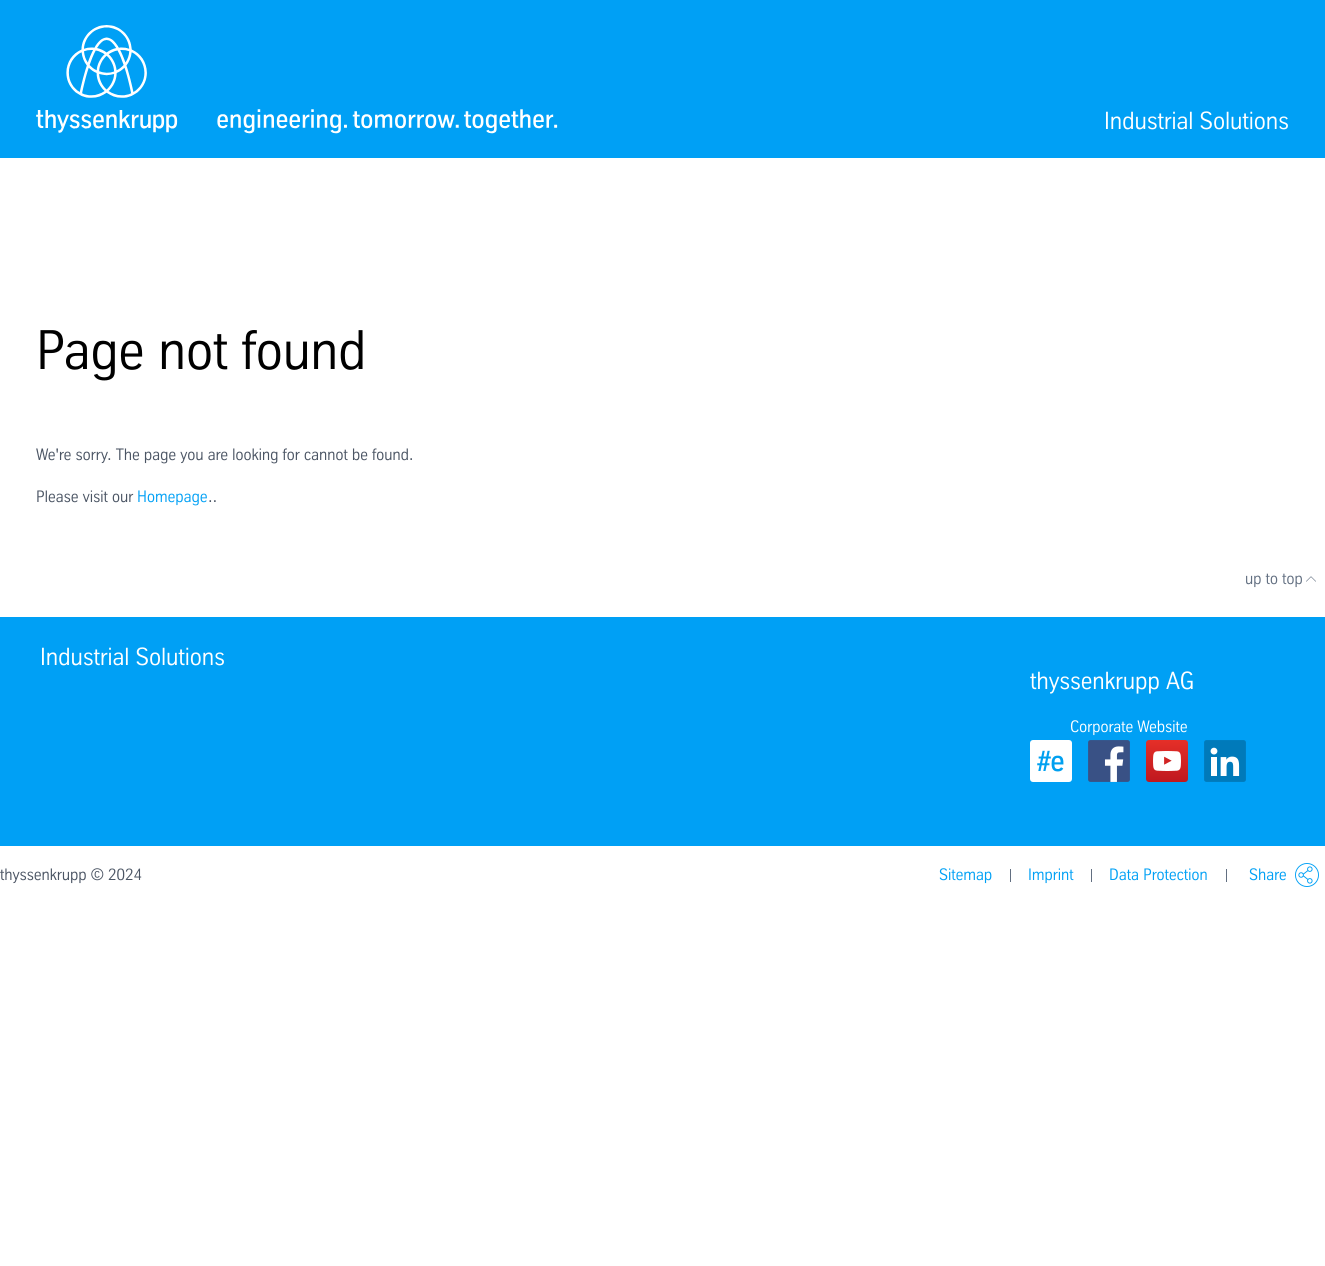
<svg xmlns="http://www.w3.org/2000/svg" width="1325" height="1266">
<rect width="100%" height="100%" fill="#fff"/>
<path fill="#00a0f5" d="M0 0h1325v158H0z"/>
<image href="1.png" x="36" y="25" width="522" height="109"/>
<image href="2.png" x="1106" y="111" width="182" height="19"/>
<image href="3.png" x="40" y="330" width="323" height="51"/>
<image href="4.png" x="36" y="448" width="376" height="16"/>
<image href="5.png" x="37" y="490" width="97" height="13"/>
<image href="6.png" x="138" y="490" width="69" height="16"/>
<image href="7.png" x="209" y="500" width="7" height="2"/>
<image href="8.png" x="1246" y="573" width="56" height="15"/>
<image href="9.png" x="1306" y="576" width="10" height="6"/>
<path fill="#00a0f5" d="M0 617h1325v229H0z"/>
<image href="2.png" x="42" y="647" width="182" height="19"/>
<image href="10.png" x="1030" y="671" width="163" height="23"/>
<image href="11.png" x="1070" y="720" width="117" height="16"/>
<image href="12.png" x="1030" y="740" width="42" height="42"/>
<image href="13.png" x="1088" y="740" width="42" height="42"/>
<image href="14.png" x="1146" y="740" width="42" height="42"/>
<image href="15.png" x="1204" y="740" width="42" height="42"/>
<image href="16.png" x="0" y="868" width="142" height="16"/>
<image href="17.png" x="939" y="868" width="53" height="16"/>
<path fill="#626f81" d="M1010 869h1v13H1010z"/>
<image href="18.png" x="1029" y="868" width="45" height="16"/>
<path fill="#626f81" d="M1091 869h1v13H1091z"/>
<image href="19.png" x="1110" y="868" width="97" height="13"/>
<path fill="#626f81" d="M1226 869h1v13H1226z"/>
<image href="20.png" x="1249" y="868" width="37" height="13"/>
<image href="21.png" x="1295" y="863" width="24" height="24"/>
</svg>
